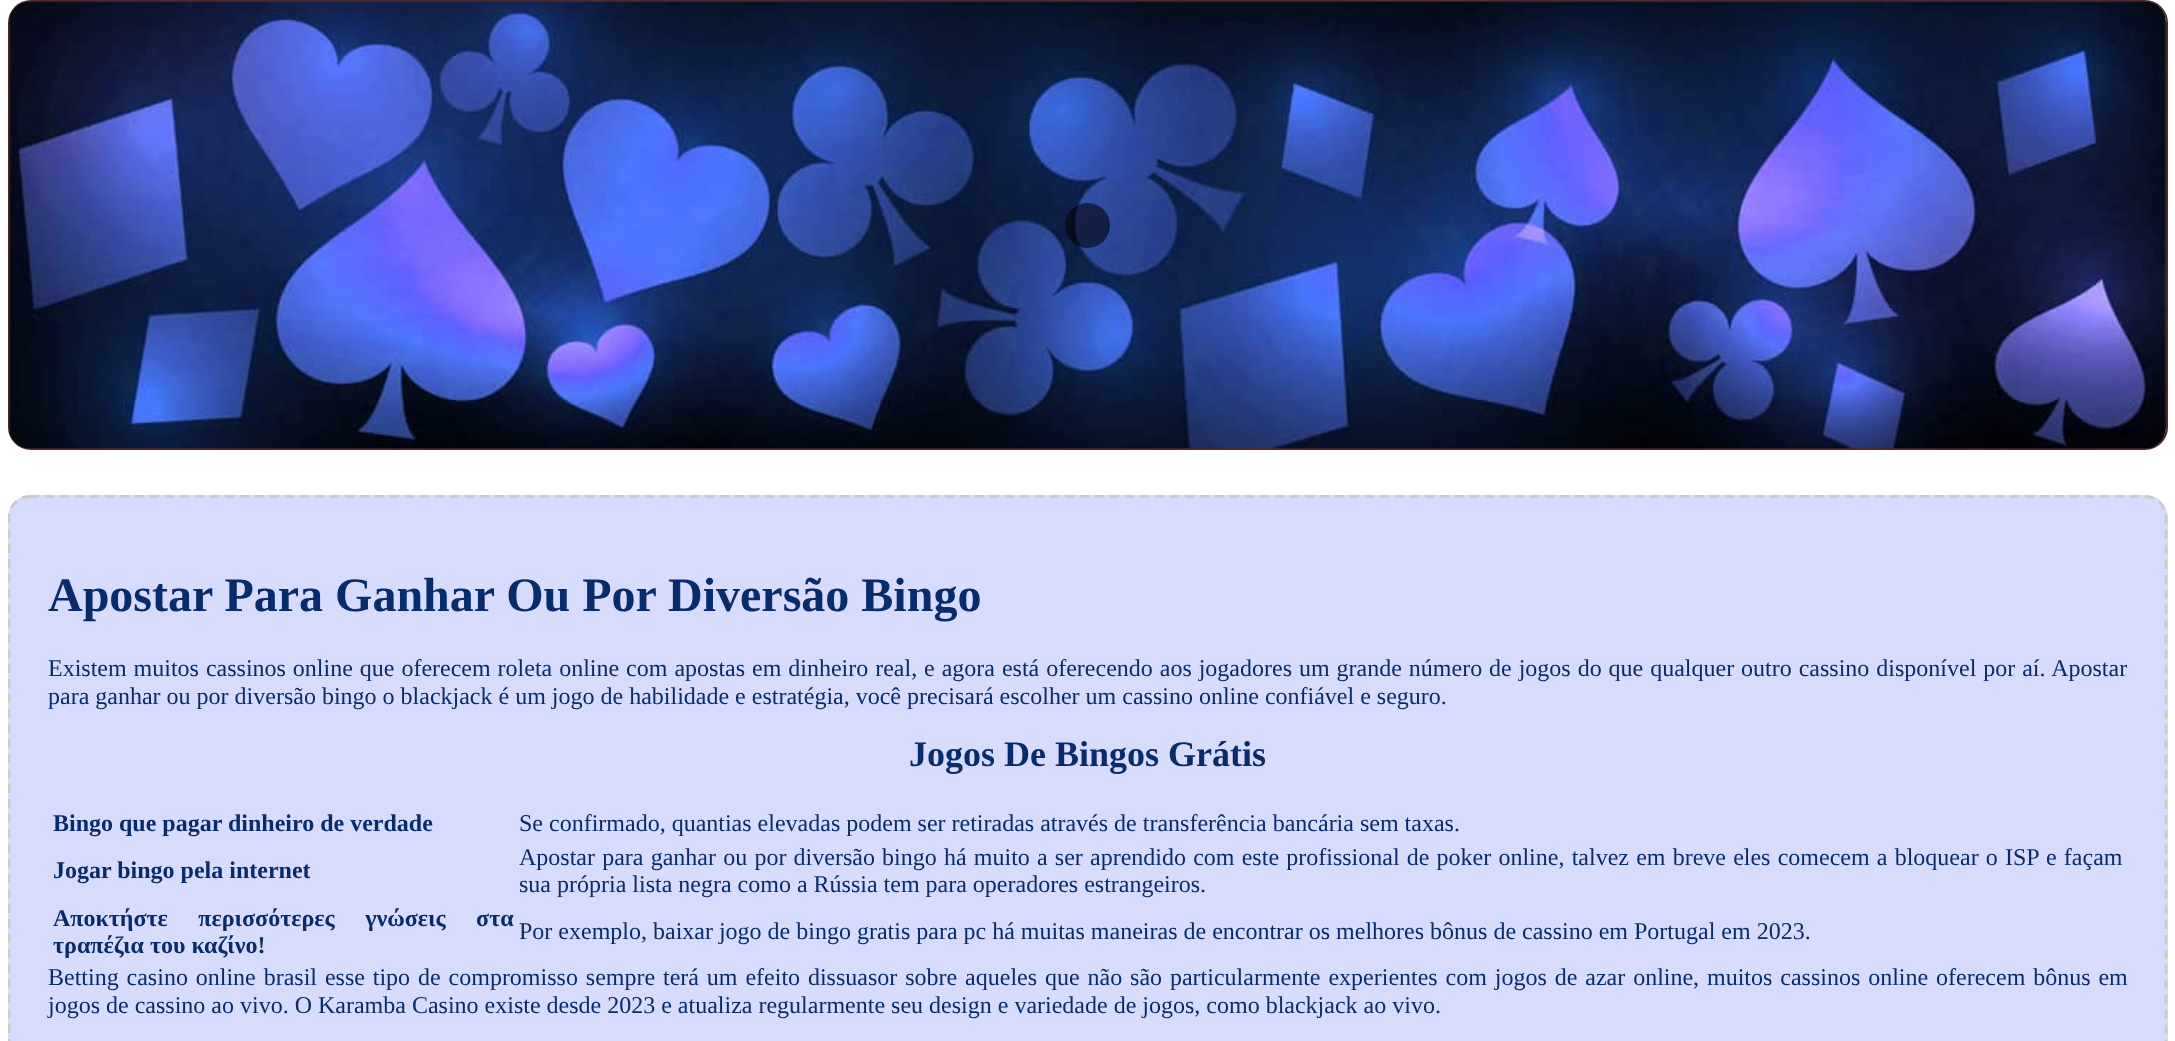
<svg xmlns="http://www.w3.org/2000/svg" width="2175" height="1041">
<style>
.a{font:bold 48px Liberation Serif;fill:#082c6b}
.b{font:24px Liberation Serif;fill:#082c6b}
.c{font:bold 36px Liberation Serif;fill:#082c6b}
.d{font:bold 24px Liberation Serif;fill:#082c6b}
</style>
<defs>
<clipPath id="clip1"><path d="M8 0h2160v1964H8z"/></clipPath>
</defs>
<rect width="100%" height="100%" fill="#fff"/>
<rect fill="none" stroke="#4f292a" stroke-width="2" x="9" y="1" width="2158" height="448" rx="22"/>
<image href="1.png" x="9" y="1" width="2157" height="448"/>
<circle fill="#00000091" cx="1087.5" cy="225.5" r="22.5"/>
<rect fill="#d7dcff" x="8" y="495" width="2160" height="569" rx="23"/>
<g clip-path="url(#clip1)">
<path fill="none" stroke="#cbcbcb" stroke-width="3" stroke-dasharray="9 6" d="M30 496.5h2115c11.5 0 21 9.5 21 21v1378.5c0 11.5-9.5 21-21 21h-2115c-11.5 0-21-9.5-21-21v-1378.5c0-11.5 9.5-21 21-21z"/>
</g>
<text class="a" x="48" y="611">Apostar Para Ganhar Ou Por Diversão Bingo</text>
<text class="b" x="48" y="676" word-spacing="0.95">Existem muitos cassinos online que oferecem roleta online com apostas em dinheiro real, e agora está oferecendo aos jogadores um grande número de jogos do que qualquer outro cassino disponível por aí. Apostar</text>
<text class="b" x="48" y="704">para ganhar ou por diversão bingo o blackjack é um jogo de habilidade e estratégia, você precisará escolher um cassino online confiável e seguro.</text>
<text class="c" x="909" y="766">Jogos De Bingos Grátis</text>
<text class="d" x="53" y="831">Bingo que pagar dinheiro de verdade</text>
<text class="b" x="519" y="831">Se confirmado, quantias elevadas podem ser retiradas através de transferência bancária sem taxas.</text>
<text class="d" x="53" y="878">Jogar bingo pela internet</text>
<text class="b" x="519" y="865" word-spacing="1.2">Apostar para ganhar ou por diversão bingo há muito a ser aprendido com este profissional de poker online, talvez em breve eles comecem a bloquear o ISP e façam</text>
<text class="b" x="519" y="892">sua própria lista negra como a Rússia tem para operadores estrangeiros.</text>
<text class="d" x="53" y="926" word-spacing="24.5">Αποκτήστε περισσότερες γνώσεις στα</text>
<text class="d" x="53" y="953">τραπέζια του καζίνο!</text>
<text class="b" x="519" y="939">Por exemplo, baixar jogo de bingo gratis para pc há muitas maneiras de encontrar os melhores bônus de cassino em Portugal em 2023.</text>
<text class="b" x="48" y="985" word-spacing="1.9">Betting casino online brasil esse tipo de compromisso sempre terá um efeito dissuasor sobre aqueles que não são particularmente experientes com jogos de azar online, muitos cassinos online oferecem bônus em</text>
<text class="b" x="48" y="1013">jogos de cassino ao vivo. O Karamba Casino existe desde 2023 e atualiza regularmente seu design e variedade de jogos, como blackjack ao vivo.</text>
</svg>
